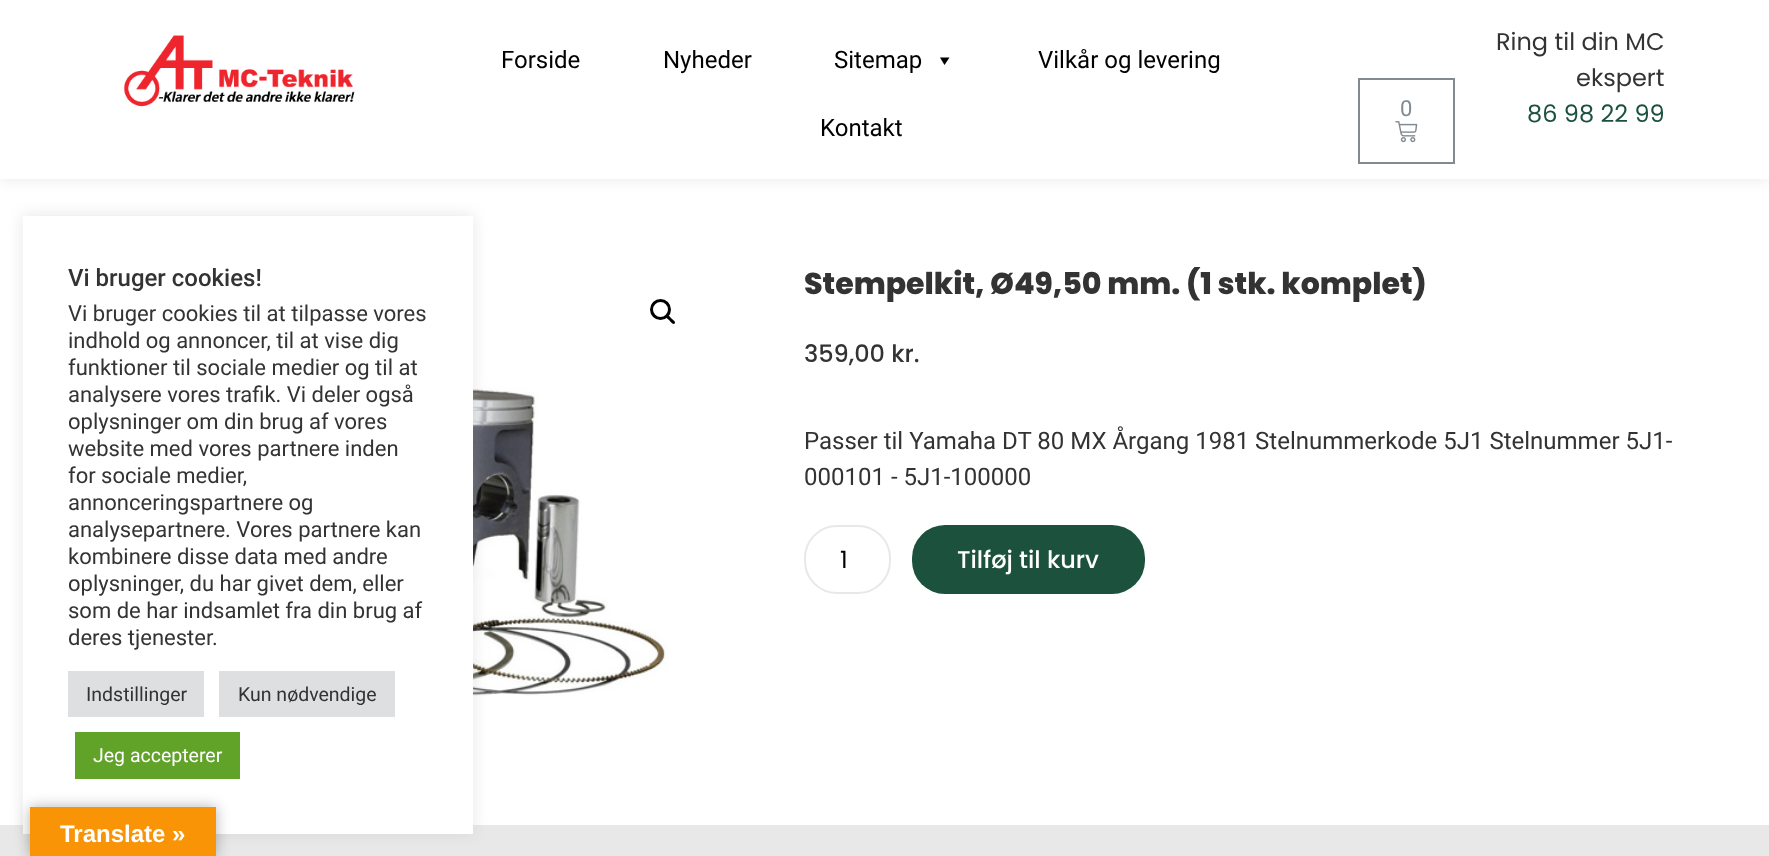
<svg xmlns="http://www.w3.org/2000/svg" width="1769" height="856">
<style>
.a{font:24px Roboto;fill:#000}
.b{font:22px Roboto;fill:#818a91}
.c{font:24px Poppins;fill:#333}
.d{font:24px Poppins;fill:#1b513d}
.e{font:500 24px Roboto;fill:#333}
.f{font:22px Roboto;fill:#333}
.g{font:19.5px Roboto;fill:#333}
.h{font:19.5px Roboto;fill:#fff}
.i{font:800 30px Poppins;fill:#333}
.j{font:500 24px Poppins;fill:#333}
.k{font:24px Roboto;fill:#333}
.l{font:24px Poppins;fill:#000}
.m{font:500 24px Poppins;fill:#fff}
.n{font:bold 24px Liberation Sans;fill:#fff}
</style>
<rect width="100%" height="100%" fill="#fff"/>
<path fill="#00000017" filter="blur(7.5px)" d="M0 0h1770v179H0z"/>
<path fill="#fff" d="M0 0h1769v179H0z"/>
<image href="1.png" x="123" y="35" width="232" height="72"/>
<path fill="#000" d="M949.5 57.5l-5 7.5l-4.5-7.5z"/>
<path fill="none" stroke="#818a91" stroke-width="2" d="M1359 79h95v84H1359z"/>
<image href="2.png" x="1395" y="121" width="23" height="22"/>
<image href="3.png" x="473" y="311" width="195" height="385"/>
<path fill="#e8e8e8" d="M0 825h1769v31H0z"/>
<path fill="#acabab4d" filter="blur(7.5px)" d="M23 215h450v618H23z"/>
<path fill="#fff" d="M23 216h450v618H23z"/>
<path fill="#dedfe0" d="M68 671h136v46H68z"/>
<path fill="#dedfe0" d="M219 671h176v46H219z"/>
<path fill="#61a229" d="M75 732h165v47H75z"/>
<circle fill="none" stroke="#000" stroke-width="3" cx="660.5" cy="309.5" r="9"/>
<path fill="#000" d="M666.5 315.5c1.5-2 4 2 5 3c1 1 5 3.5 3 5c-1.5 2-4-2-5-3c-1-1-5-3.5-3-5z"/>
<rect fill="none" stroke="#e8e8e8" stroke-width="2" x="805" y="526" width="85" height="67" rx="32"/>
<rect fill="#1b513d" x="912" y="525" width="233" height="69" rx="33"/>
<path fill="#0000004d" filter="blur(7px)" d="M30 807h186v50H30z"/>
<path fill="#f89406" d="M30 807h186v49H30z"/>
<text class="a" x="501" y="68">Forside</text>
<text class="a" x="663" y="68">Nyheder</text>
<text class="a" x="834" y="68">Sitemap</text>
<text class="a" x="1038" y="68">Vilkår og levering</text>
<text class="a" x="820" y="136">Kontakt</text>
<text class="b" x="1400" y="116">0</text>
<text class="c" x="1496" y="50">Ring til din MC</text>
<text class="c" x="1576" y="86">ekspert</text>
<text class="d" x="1527" y="122">86 98 22 99</text>
<text class="e" x="68" y="286">Vi bruger cookies!</text>
<text class="f" x="68" y="321">Vi bruger cookies til at tilpasse vores</text>
<text class="f" x="68" y="348">indhold og annoncer, til at vise dig</text>
<text class="f" x="68" y="375">funktioner til sociale medier og til at</text>
<text class="f" x="68" y="402">analysere vores trafik. Vi deler også</text>
<text class="f" x="68" y="429">oplysninger om din brug af vores</text>
<text class="f" x="68" y="456">website med vores partnere inden</text>
<text class="f" x="68" y="483">for sociale medier,</text>
<text class="f" x="68" y="510">annonceringspartnere og</text>
<text class="f" x="68" y="537">analysepartnere. Vores partnere kan</text>
<text class="f" x="68" y="564">kombinere disse data med andre</text>
<text class="f" x="68" y="591">oplysninger, du har givet dem, eller</text>
<text class="f" x="68" y="618">som de har indsamlet fra din brug af</text>
<text class="f" x="68" y="645">deres tjenester.</text>
<text class="g" x="86" y="701">Indstillinger</text>
<text class="g" x="238" y="701">Kun nødvendige</text>
<text class="h" x="93" y="762">Jeg accepterer</text>
<text class="i" x="804" y="294">Stempelkit, Ø49,50 mm. (1 stk. komplet)</text>
<text class="j" x="804" y="362">359,00 kr.</text>
<text class="k" x="804" y="449">Passer til Yamaha DT 80 MX Årgang 1981 Stelnummerkode 5J1 Stelnummer 5J1-</text>
<text class="k" x="804" y="485">000101 - 5J1-100000</text>
<text class="l" x="840" y="568">1</text>
<text class="m" x="957" y="568">Tilføj til kurv</text>
<text class="n" x="60" y="842">Translate »</text>
</svg>
